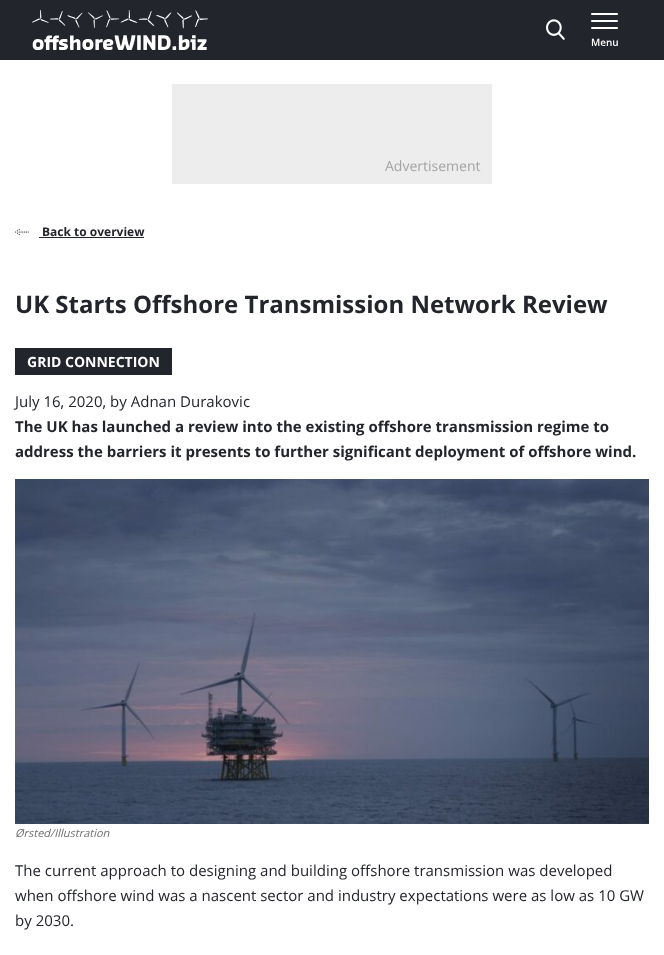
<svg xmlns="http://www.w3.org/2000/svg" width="664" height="955">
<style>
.a{font:600 10px Open Sans;fill:#fff}
.b{font:14px Open Sans;fill:#a3a3a3}
.c{font:bold 12px Open Sans;fill:#23252c}
.d{font:bold 24px Open Sans;fill:#23252c}
.e{font:bold 14px Open Sans;fill:#fff}
.f{font:15px Open Sans;fill:#23252c}
.g{font:bold 15px Open Sans;fill:#23252c}
.h{font:italic 11px Open Sans;fill:#6e6e6e}
</style>
<rect width="100%" height="100%" fill="#fff"/>
<path fill="#23252c" d="M0 0h664v60H0z"/>
<image href="1.png" x="32" y="10" width="176" height="40"/>
<image href="2.png" x="546" y="19" width="19" height="21"/>
<image href="3.png" x="591" y="13" width="27" height="16"/>
<path fill="#ededed" d="M172 84h320v100H172z"/>
<image href="4.png" x="15" y="229" width="14" height="6"/>
<path fill="#23252c" d="M39 237h105v1H39z"/>
<path fill="#23252c" d="M15 348h157v27H15z"/>
<image href="5.png" x="15" y="479" width="634" height="345"/>
<text class="a" x="591" y="46">Menu</text>
<text class="b" x="385" y="171">Advertisement</text>
<text class="c" x="42" y="236">Back to overview</text>
<text class="d" x="15" y="313">UK Starts Offshore Transmission Network Review</text>
<text class="e" x="27" y="367">GRID CONNECTION</text>
<text class="f" x="15" y="407">July 16, 2020, by Adnan Durakovic</text>
<text class="g" x="15" y="432">The UK has launched a review into the existing offshore transmission regime to</text>
<text class="g" x="15" y="457">address the barriers it presents to further significant deployment of offshore wind.</text>
<text class="h" x="15" y="837">Ørsted/Illustration</text>
<text class="f" x="15" y="876">The current approach to designing and building offshore transmission was developed</text>
<text class="f" x="15" y="901">when offshore wind was a nascent sector and industry expectations were as low as 10 GW</text>
<text class="f" x="15" y="926">by 2030.</text>
</svg>
